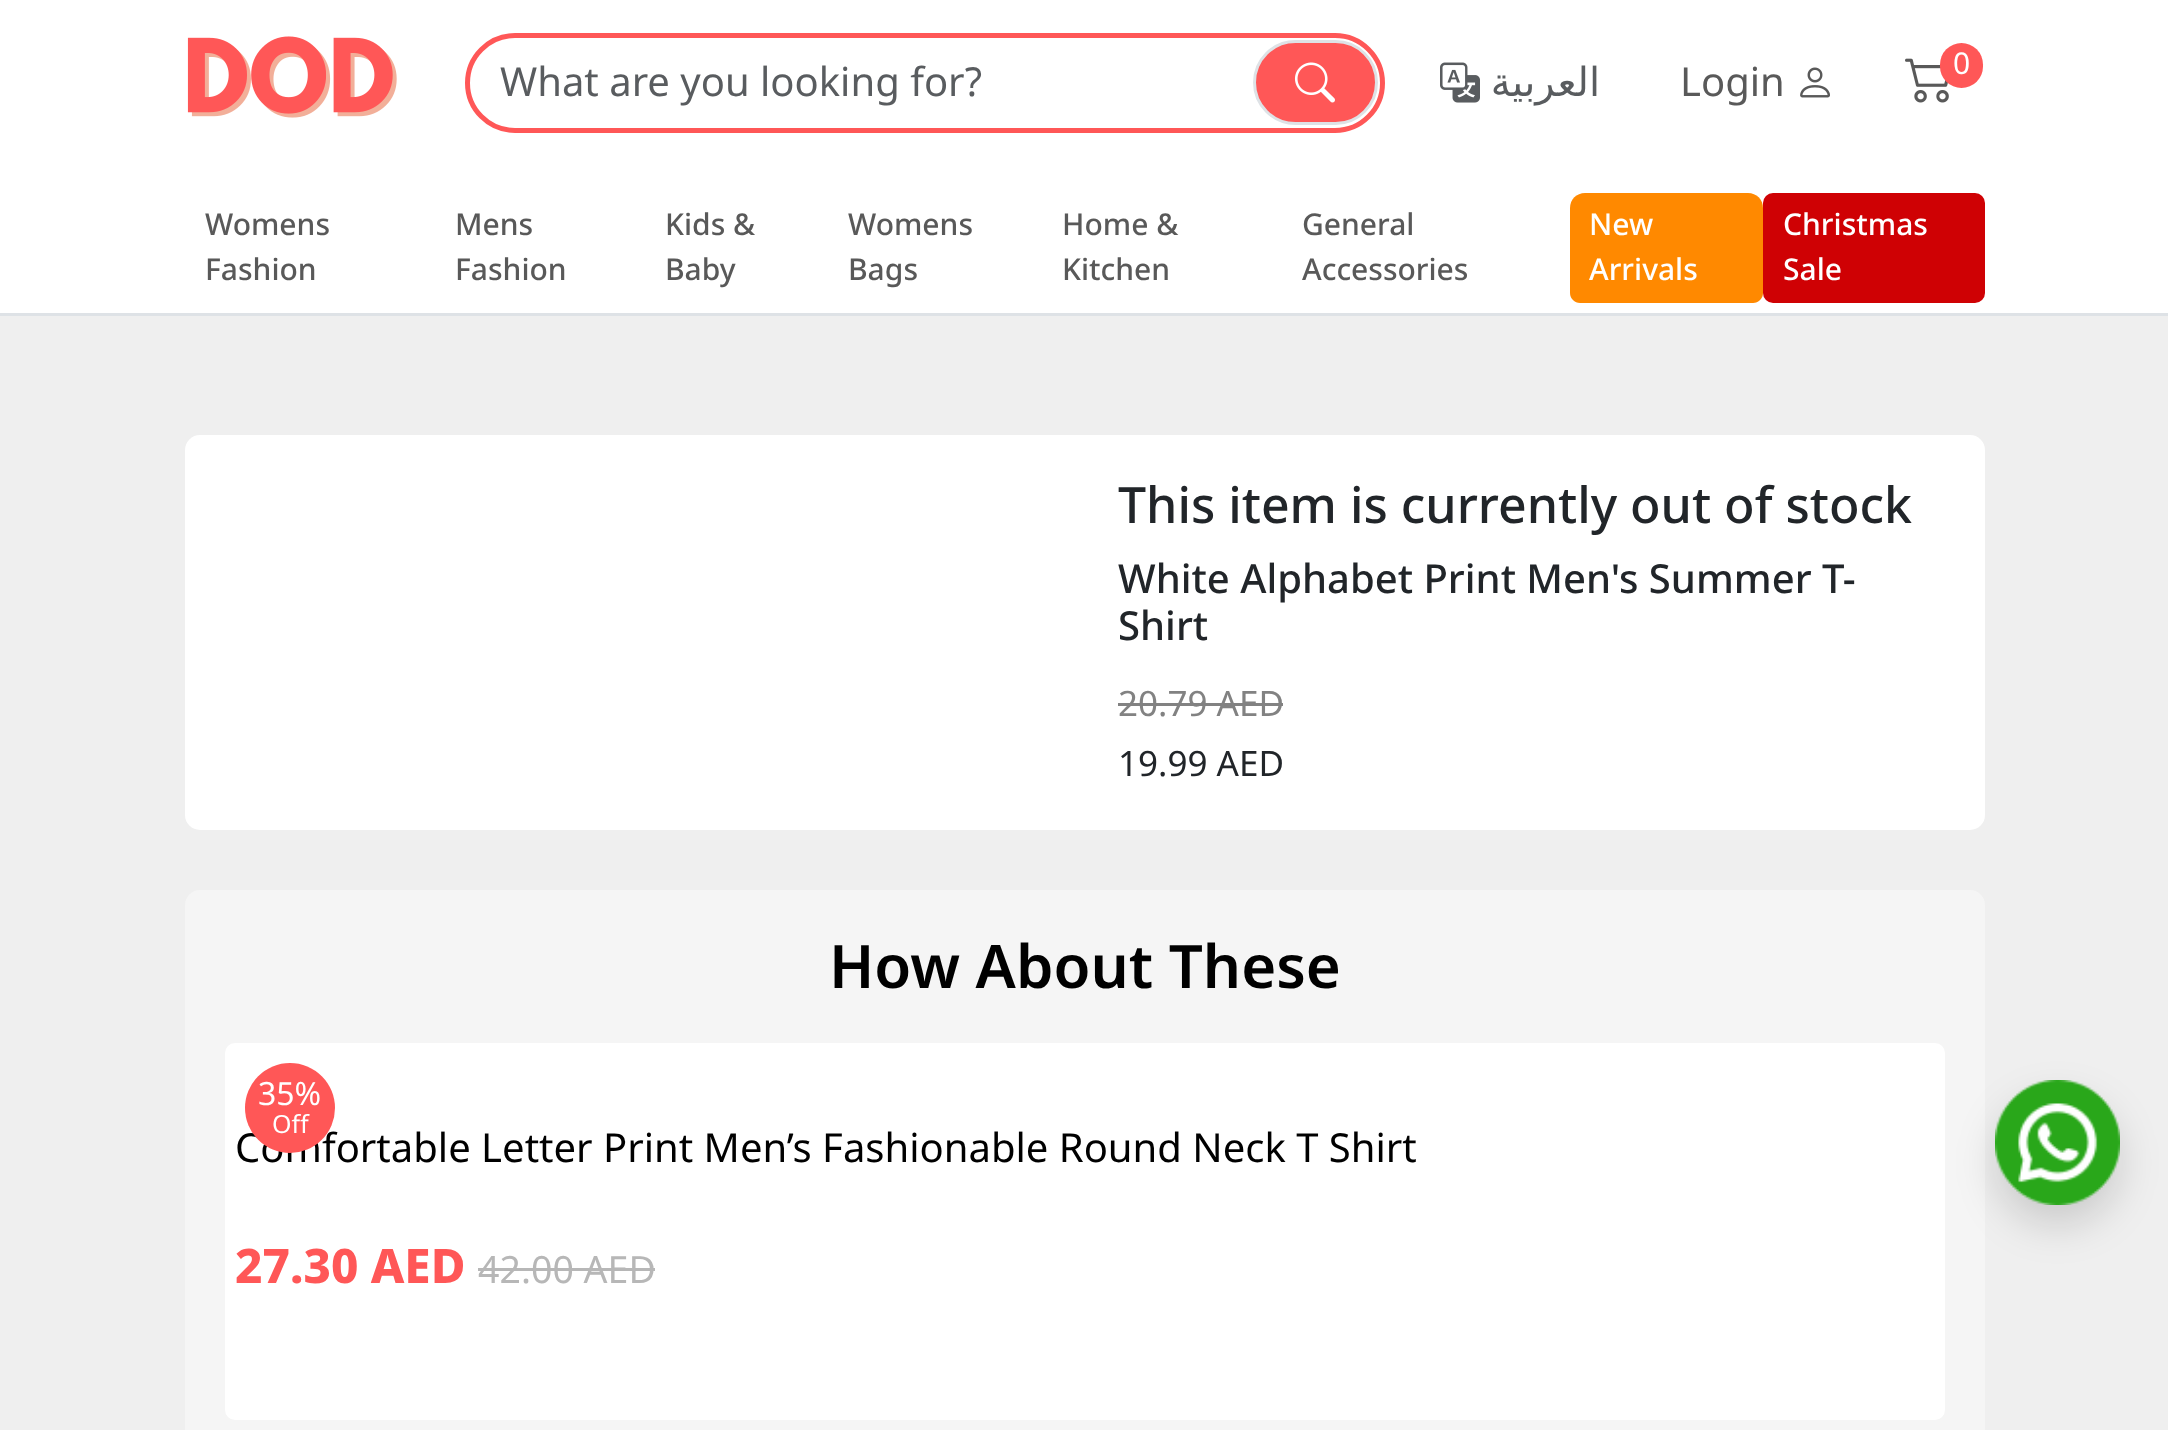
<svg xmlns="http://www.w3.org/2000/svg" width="2168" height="1430">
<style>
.a{font:40px Noto Sans;fill:#595c5f}
.b{font:40px DejaVu Sans;direction:rtl;fill:#595c5f}
.c{font:40px Noto Sans;fill:#595959}
.d{font:30px Noto Sans;fill:#fff}
.e{font:500 30px Noto Sans;fill:#595959}
.f{font:500 30px Noto Sans;fill:#fff}
.g{font:500 50px Noto Sans;fill:#212529}
.h{font:500 40px Noto Sans;fill:#212529}
.i{font:35px Noto Sans;fill:#828282}
.j{font:35px Noto Sans;fill:#212529}
.k{font:600 60px Noto Sans;fill:#000}
.l{font:40px Noto Sans;fill:#000}
.m{font:25px Noto Sans;fill:#fff}
.n{font:32px Noto Sans;fill:#fff}
.o{font:800 47.5px Noto Sans;fill:#ff5757}
.p{font:37.5px Noto Sans;fill:#b7b7b7}
</style>
<defs>
<clipPath id="clip1"><path d="M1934 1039h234v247h-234zm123.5 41c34.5 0 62.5 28 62.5 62.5c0 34.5-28 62.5-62.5 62.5c-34.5 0-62.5-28-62.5-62.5c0-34.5 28-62.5 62.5-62.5z" clip-rule="evenodd"/></clipPath>
</defs>
<rect width="100%" height="100%" fill="#efefef"/>
<path fill="#fff" d="M0 0h2168v313H0z"/>
<image href="1.png" x="187" y="36" width="210" height="82"/>
<rect fill="none" stroke="#ff5757" stroke-width="5" x="467.5" y="35.5" width="915" height="95" rx="47.5"/>
<rect fill="#ff5757" stroke="#dee2e6" stroke-width="3" x="1254.5" y="41.5" width="122" height="82" rx="41"/>
<image href="2.png" x="1294" y="62" width="41" height="41"/>
<image href="3.png" x="1440" y="62" width="40" height="41"/>
<image href="4.png" x="1800" y="67" width="30" height="31"/>
<image href="5.png" x="1905" y="58" width="44" height="45"/>
<rect fill="#ff5757" x="1940" y="43" width="43" height="45" rx="21.5"/>
<path fill="#dee2e6" d="M0 313h2168v3H0z"/>
<path fill="#ff8900" d="M1585 193h163c8.5 0 15 6.5 15 15v85c0 5.5-4.5 10-10 10h-173c-5.5 0-10-4.5-10-10v-85c0-8.5 6.5-15 15-15z"/>
<rect fill="#cf0104" x="1763" y="193" width="222" height="110" rx="10"/>
<rect fill="#fff" x="185" y="435" width="1800" height="395" rx="15"/>
<path fill="#828282" d="M1118 703h165v3H1118z"/>
<rect fill="#f5f5f5" x="185" y="890" width="1800" height="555" rx="15"/>
<rect fill="#fff" x="225" y="1043" width="1720" height="377" rx="10"/>
<path fill="#b7b7b7" d="M478 1268h177v3H478z"/>
<g clip-path="url(#clip1)">
<rect fill="#00000026" filter="blur(20px)" x="1995" y="1100" width="125" height="125" rx="62.5"/>
</g>
<image href="6.png" x="1995" y="1080" width="125" height="125"/>
<text class="a" x="500" y="96">What are you looking for?</text>
<text class="b" x="1600" y="96">العربية</text>
<text class="c" x="1680" y="96">Login</text>
<text class="d" x="1953" y="74">0</text>
<text class="e" x="205" y="235">Womens</text>
<text class="e" x="205" y="280">Fashion</text>
<text class="e" x="455" y="235">Mens</text>
<text class="e" x="455" y="280">Fashion</text>
<text class="e" x="665" y="235">Kids &amp;</text>
<text class="e" x="665" y="280">Baby</text>
<text class="e" x="848" y="235">Womens</text>
<text class="e" x="848" y="280">Bags</text>
<text class="e" x="1062" y="235">Home &amp;</text>
<text class="e" x="1062" y="280">Kitchen</text>
<text class="e" x="1302" y="235">General</text>
<text class="e" x="1302" y="280">Accessories</text>
<text class="f" x="1589" y="235">New</text>
<text class="f" x="1589" y="280">Arrivals</text>
<text class="f" x="1783" y="235">Christmas</text>
<text class="f" x="1783" y="280">Sale</text>
<text class="g" x="1118" y="523">This item is currently out of stock</text>
<text class="h" x="1118" y="593">White Alphabet Print Men's Summer T-</text>
<text class="h" x="1118" y="640">Shirt</text>
<text class="i" x="1118" y="716">20.79 AED</text>
<text class="j" x="1118" y="776">19.99 AED</text>
<text class="k" x="829" y="988">How About These</text>
<text class="l" x="235" y="1162">Comfortable Letter Print Men’s Fashionable Round Neck T Shirt</text>
<circle fill="#ff5757" cx="290" cy="1108" r="45"/>
<text class="m" x="272" y="1133">Off</text>
<text class="n" x="258" y="1105">35%</text>
<text class="o" x="235" y="1283">27.30 AED</text>
<text class="p" x="478" y="1283">42.00 AED</text>
</svg>
